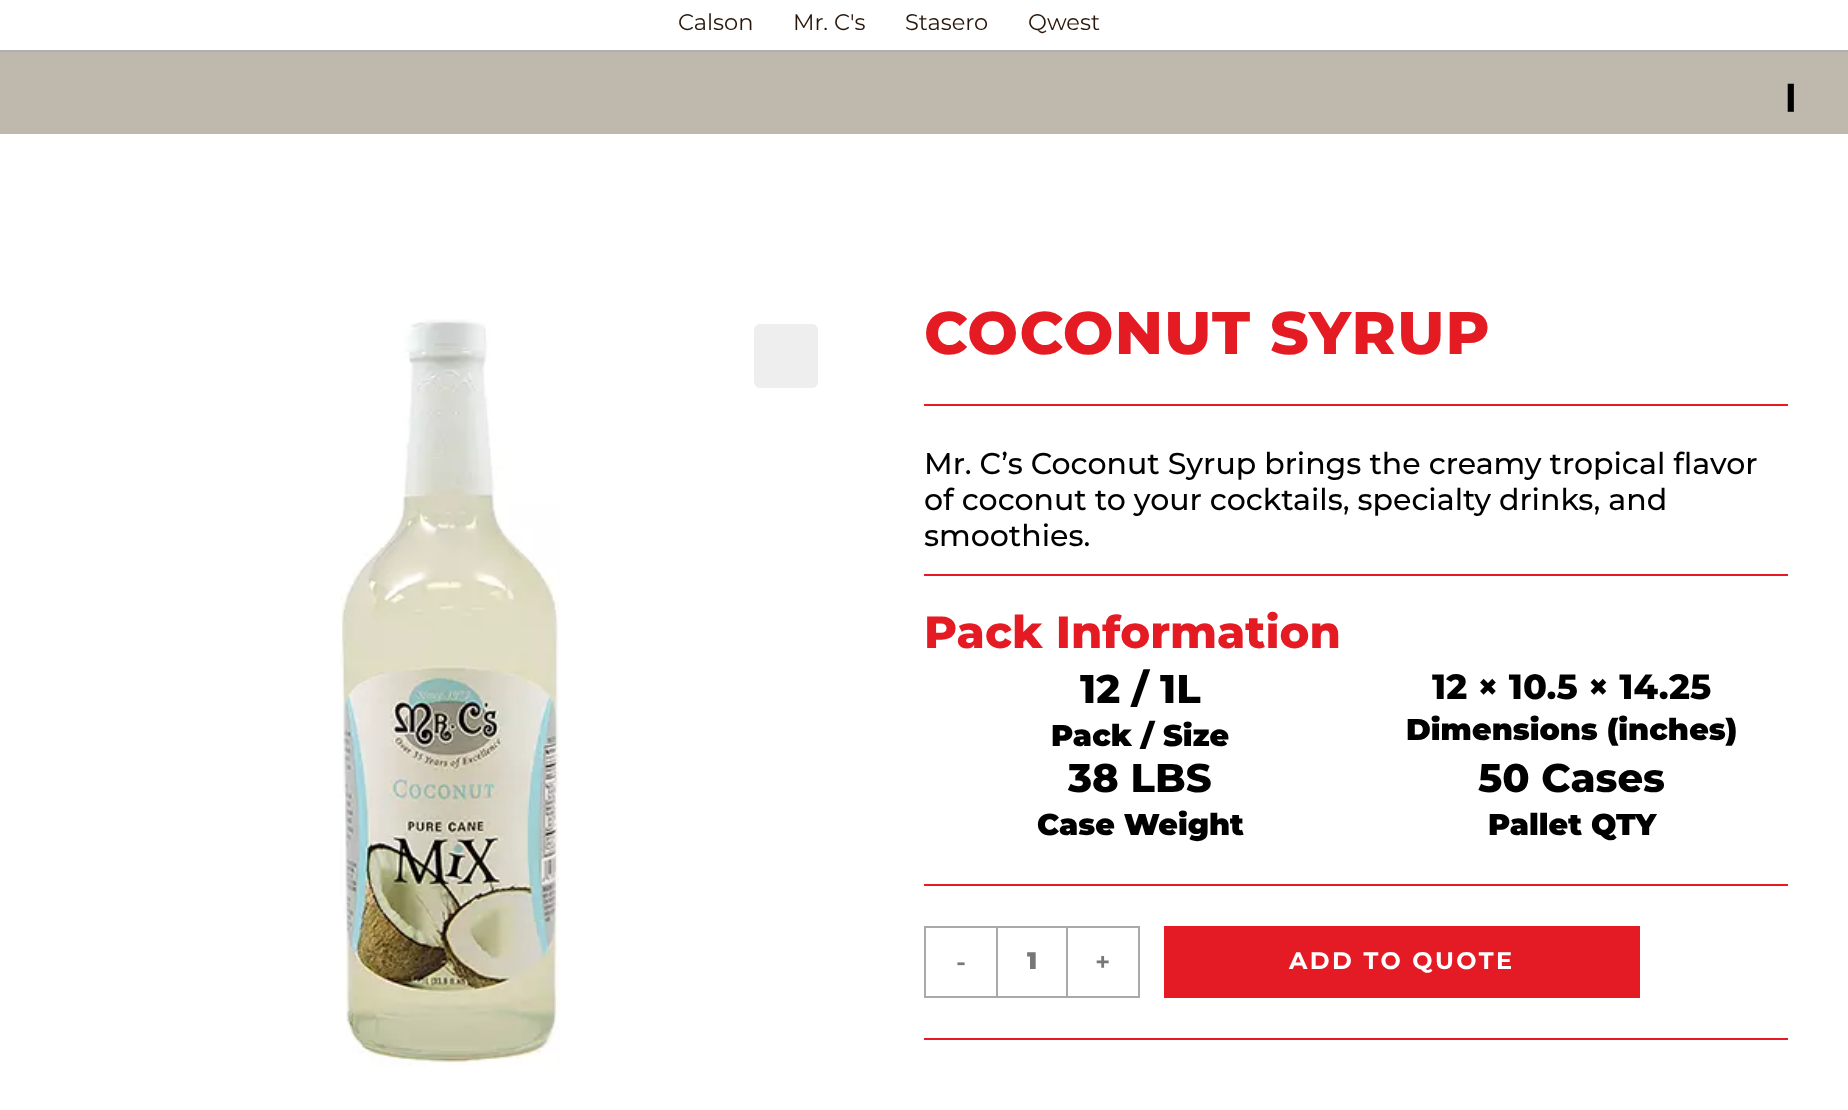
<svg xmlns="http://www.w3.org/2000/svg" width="1848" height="1110">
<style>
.a{font:100 22.5px Montserrat;fill:#28160a}
.b{font:900 30px Montserrat;fill:#000}
.c{font:800 60px Montserrat;letter-spacing:1.25px;fill:#e51b24}
.d{font:500 30px Montserrat;fill:#000}
.e{font:800 45px Montserrat;fill:#e51b24}
.f{font:800 40px Montserrat;fill:#000}
.g{font:800 35px Montserrat;fill:#000}
.h{font:600 26px Montserrat;fill:#777}
.i{font:900 24px Montserrat;fill:#777}
.j{font:bold 24px Montserrat;letter-spacing:2.4px;fill:#fff}
</style>
<rect width="100%" height="100%" fill="#fff"/>
<path fill="#afafaf" d="M0 50h1848v2H0z"/>
<path fill="#bfb9ad" d="M0 52h1848v82H0z"/>
<image href="1.png" x="340" y="319" width="220" height="747"/>
<rect fill="#eee" x="754" y="324" width="64" height="64" rx="6"/>
<path fill="#e51b24" d="M924 404h864v2H924z"/>
<path fill="#e51b24" d="M924 574h864v2H924z"/>
<path fill="#e51b24" d="M924 884h864v2H924z"/>
<path fill="#e51b24" d="M924 1038h864v2H924z"/>
<path fill="#a7a9ac" d="M924 926h72v2H924z"/>
<path fill="#a7a9ac" d="M924 996h72v2H924z"/>
<path fill="#a7a9ac" d="M924 926h2v72H924z"/>
<path fill="none" stroke="#a7a9ac" stroke-width="2" d="M997 927h70v70H997z"/>
<path fill="#a7a9ac" d="M1068 926h72v2H1068z"/>
<path fill="#a7a9ac" d="M1138 926h2v72H1138z"/>
<path fill="#a7a9ac" d="M1068 996h72v2H1068z"/>
<path fill="#e41b24" d="M1164 926h476v72H1164z"/>
<text class="a" x="678" y="30">Calson</text>
<text class="a" x="793" y="30">Mr. C's</text>
<text class="a" x="905" y="30">Stasero</text>
<text class="a" x="1028" y="30">Qwest</text>
<text class="b" x="1786" y="106">|</text>
<text class="c" x="924" y="354">COCONUT SYRUP</text>
<text class="d" x="924" y="474">Mr. C’s Coconut Syrup brings the creamy tropical flavor</text>
<text class="d" x="924" y="510">of coconut to your cocktails, specialty drinks, and</text>
<text class="d" x="924" y="546">smoothies.</text>
<text class="e" x="924" y="648">Pack Information</text>
<text class="f" x="1080" y="703">12 / 1L</text>
<text class="b" x="1051" y="746">Pack / Size</text>
<text class="g" x="1432" y="699">12 × 10.5 × 14.25</text>
<text class="b" x="1406" y="740">Dimensions (inches)</text>
<text class="f" x="1068" y="792">38 LBS</text>
<text class="b" x="1037" y="835">Case Weight</text>
<text class="f" x="1478" y="792">50 Cases</text>
<text class="b" x="1488" y="835">Pallet QTY</text>
<text class="h" x="956" y="971">-</text>
<text class="i" x="1027" y="969">1</text>
<text class="h" x="1095" y="971">+</text>
<text class="j" x="1289" y="969">ADD TO QUOTE</text>
</svg>
